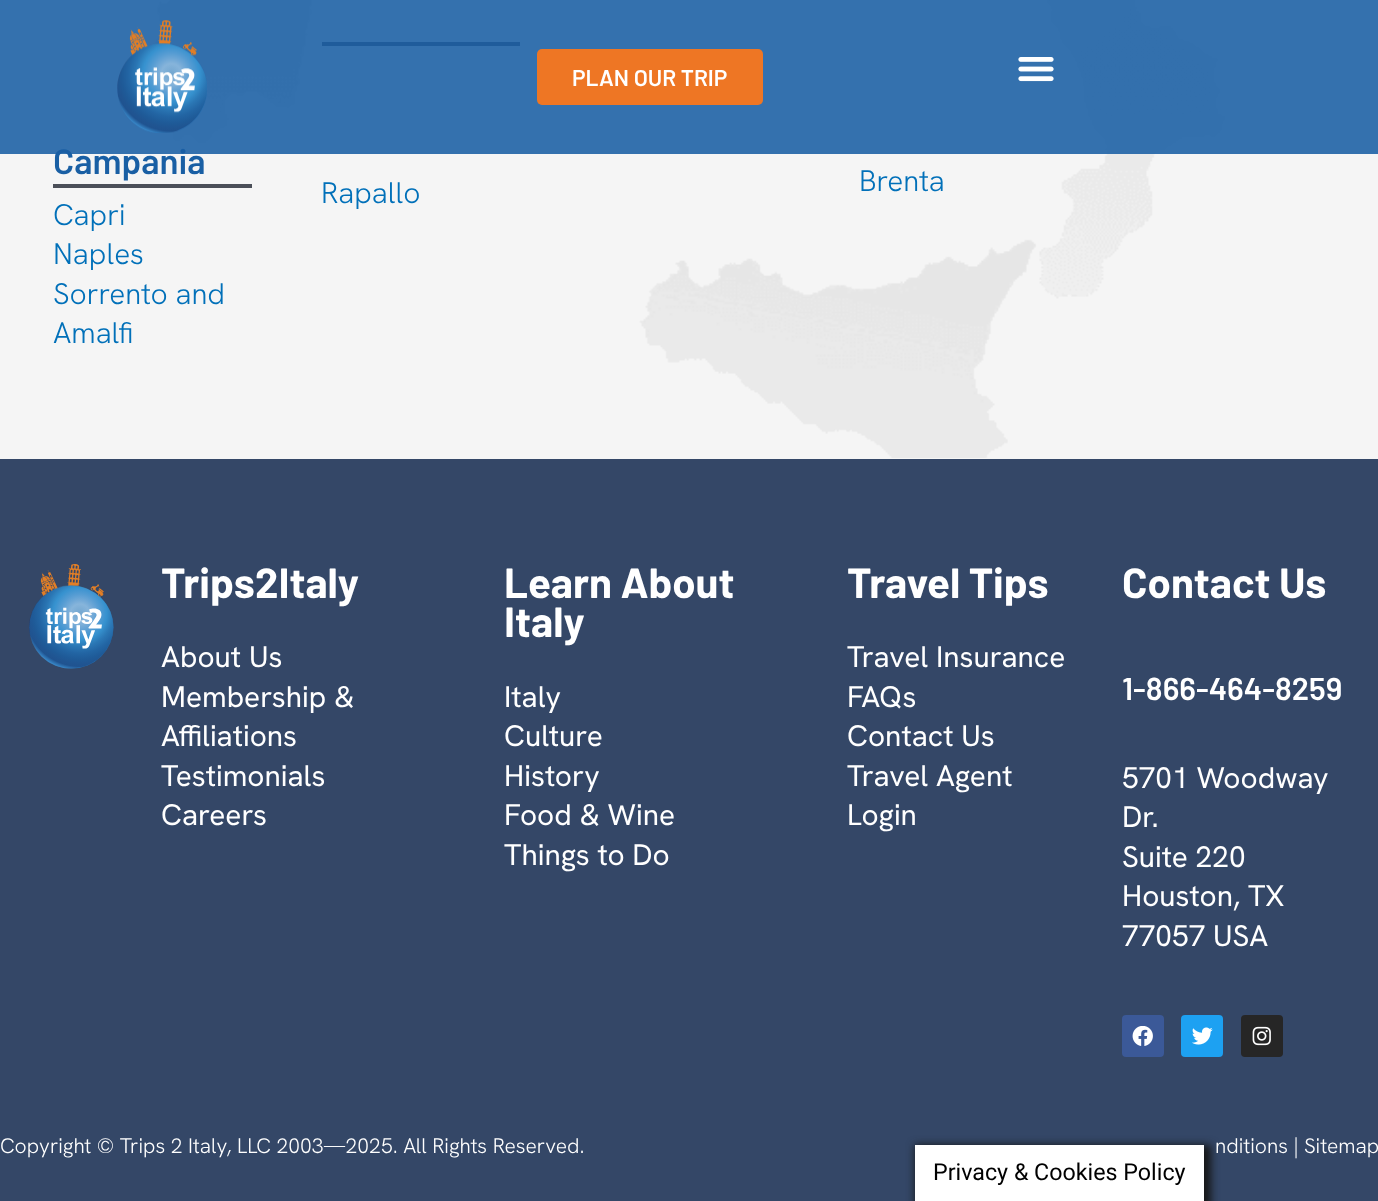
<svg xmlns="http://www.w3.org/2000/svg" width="1378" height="1201">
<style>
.a{font:600 35px Barlow;fill:#195fa4}
.b{font:600 22.75px Barlow;fill:#fff}
.c{font:300 29.75px Hanken Grotesk;fill:#0170b9}
.d{font:bold 42px Barlow;fill:#fff}
.e{font:29.75px Hanken Grotesk;fill:#fff}
.f{font:600 31.5px Barlow;fill:#fff}
.g{font:300 21px Hanken Grotesk;fill:#fff}
.h{font:23.25px Roboto;fill:#000}
</style>
<rect width="100%" height="100%" fill="#f5f5f5"/>
<image href="3.png" x="153" y="0" width="1073" height="458"/>
<path fill="#4b4f58" d="M53 184h199v4H53z"/>
<path fill="#4b4f58" d="M322 42h198v4H322z"/>
<path fill="#344767" d="M0 459h1378v742H0z"/>
<image href="4.png" x="29" y="564" width="85" height="105"/>
<rect fill="#3b5998" x="1122" y="1015" width="42" height="42" rx="4"/>
<image href="5.png" x="1132" y="1026" width="21" height="20"/>
<rect fill="#1da1f2" x="1181" y="1015" width="42" height="42" rx="4"/>
<image href="6.png" x="1192" y="1027" width="21" height="18"/>
<rect fill="#262626" x="1241" y="1015" width="42" height="42" rx="4"/>
<image href="7.png" x="1252" y="1026" width="19" height="20"/>
<path fill="#161616" filter="blur(4.5px)" d="M915 1145h296v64H915z"/>
<path fill="#fff" d="M915 1145h289v56H915z"/>
<text class="a" x="53" y="174">Campania</text>
<path fill="#195fa4e0" d="M0 0h1378v154H0z"/>
<image href="2.png" x="1018" y="57" width="36" height="25"/>
<rect fill="#ee7624" x="537" y="49" width="226" height="56" rx="5"/>
<text class="b" x="572" y="86">PLAN OUR TRIP</text>
<image href="1.png" x="117" y="20" width="90" height="113"/>
<text class="c" x="53" y="225">Capri</text>
<text class="c" x="53" y="264">Naples</text>
<text class="c" x="53" y="304">Sorrento and</text>
<text class="c" x="53" y="343">Amalfi</text>
<text class="c" x="321" y="203">Rapallo</text>
<text class="c" x="859" y="191">Brenta</text>
<text class="d" x="161" y="598">Trips2Italy</text>
<text class="e" x="161" y="667">About Us</text>
<text class="e" x="161" y="707">Membership &amp;</text>
<text class="e" x="161" y="746">Affiliations</text>
<text class="e" x="161" y="786">Testimonials</text>
<text class="e" x="161" y="825">Careers</text>
<text class="d" x="504" y="598">Learn About</text>
<text class="d" x="504" y="637">Italy</text>
<text class="e" x="504" y="707">Italy</text>
<text class="e" x="504" y="746">Culture</text>
<text class="e" x="504" y="786">History</text>
<text class="e" x="504" y="825">Food &amp; Wine</text>
<text class="e" x="504" y="865">Things to Do</text>
<text class="d" x="847" y="598">Travel Tips</text>
<text class="e" x="847" y="667">Travel Insurance</text>
<text class="e" x="847" y="707">FAQs</text>
<text class="e" x="847" y="746">Contact Us</text>
<text class="e" x="847" y="786">Travel Agent</text>
<text class="e" x="847" y="825">Login</text>
<text class="d" x="1122" y="598">Contact Us</text>
<text class="f" x="1122" y="700">1-866-464-8259</text>
<text class="e" x="1122" y="788">5701 Woodway</text>
<text class="e" x="1122" y="827">Dr.</text>
<text class="e" x="1122" y="867">Suite 220</text>
<text class="e" x="1122" y="906">Houston, TX</text>
<text class="e" x="1122" y="946">77057 USA</text>
<text class="g" x="0" y="1153">Copyright © Trips 2 Italy, LLC 2003—2025. All Rights Reserved.</text>
<text class="g" x="1215" y="1153">nditions | Sitemap</text>
<text class="h" x="933" y="1180">Privacy &amp; Cookies Policy</text>
</svg>
